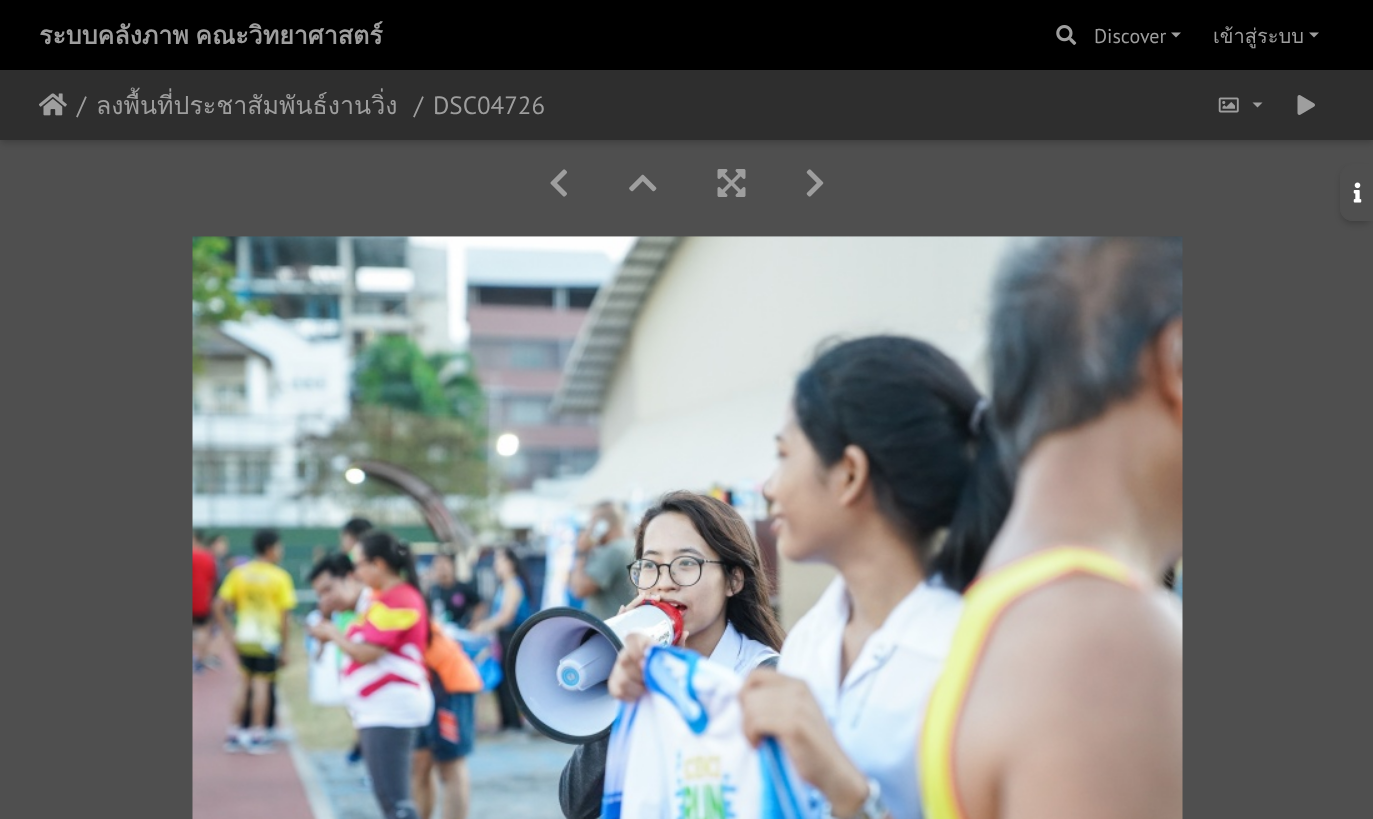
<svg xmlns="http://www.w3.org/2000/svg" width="1373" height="819">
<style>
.a{font:bold 25px Loma;fill:#9e9e9e}
.b{font:20px PT Sans;fill:#9e9e9e}
.c{font:20px Loma;fill:#9e9e9e}
.d{font:25px PT Sans;fill:#9e9e9e}
.e{font:25px Loma;fill:#9e9e9e}
</style>
<rect width="100%" height="100%" fill="#4f4f4f"/>
<path fill="#00000033" filter="blur(3px)" d="M1 75h1372v68H1z"/>
<path fill="#000" d="M0 0h1373v70H0z"/>
<image href="1.png" x="1056" y="25" width="21" height="20"/>
<path fill="#9e9e9e" d="M1171 32.5h10l-5 5z"/>
<path fill="#9e9e9e" d="M1309 32.5h10l-5 5z"/>
<path fill="#2e2e2e" d="M0 70h1373v70H0z"/>
<image href="2.png" x="39" y="93" width="28" height="23"/>
<image href="3.png" x="1218" y="97" width="21" height="16"/>
<path fill="#9e9e9e" d="M1252.5 102.5h10l-5 5z"/>
<image href="4.png" x="1297" y="95" width="18" height="20"/>
<image href="5.png" x="550" y="169" width="17" height="28"/>
<image href="6.png" x="629" y="174" width="28" height="18"/>
<image href="7.png" x="717" y="169" width="29" height="28"/>
<image href="8.png" x="806" y="169" width="18" height="28"/>
<rect fill="#00000033" filter="blur(3px)" x="1341" y="169" width="32" height="55" rx="11"/>
<path fill="#4f4f4f" d="M1353 164h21v57h-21c-7 0-13-6-13-13v-31c0-7 6-13 13-13z"/>
<path fill="#4f4f4f" fill-rule="evenodd" d="M1352 164h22v57h-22c-6 0-12-5-12-12v-33c0-7 6-12 12-12zm0 1h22v55h-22c-6 0-11-5-11-11v-33c0-6 5-11 11-11z"/>
<image href="9.png" x="1353" y="182" width="9" height="21"/>
<image href="10.png" x="192" y="236" width="991" height="583"/>
<text class="a" x="39" y="44" word-spacing="-2">ระบบคลังภาพ คณะวิทยาศาสตร์</text>
<text class="b" x="1094" y="43">Discover</text>
<text class="c" x="1213" y="43">เข้าสู่ระบบ</text>
<text class="d" x="77" y="114">/</text>
<text class="e" x="96" y="114">ลงพื้นที่ประชาสัมพันธ์งานวิ่ง</text>
<text class="d" x="414" y="114">/</text>
<text class="d" x="433" y="114">DSC04726</text>
</svg>
